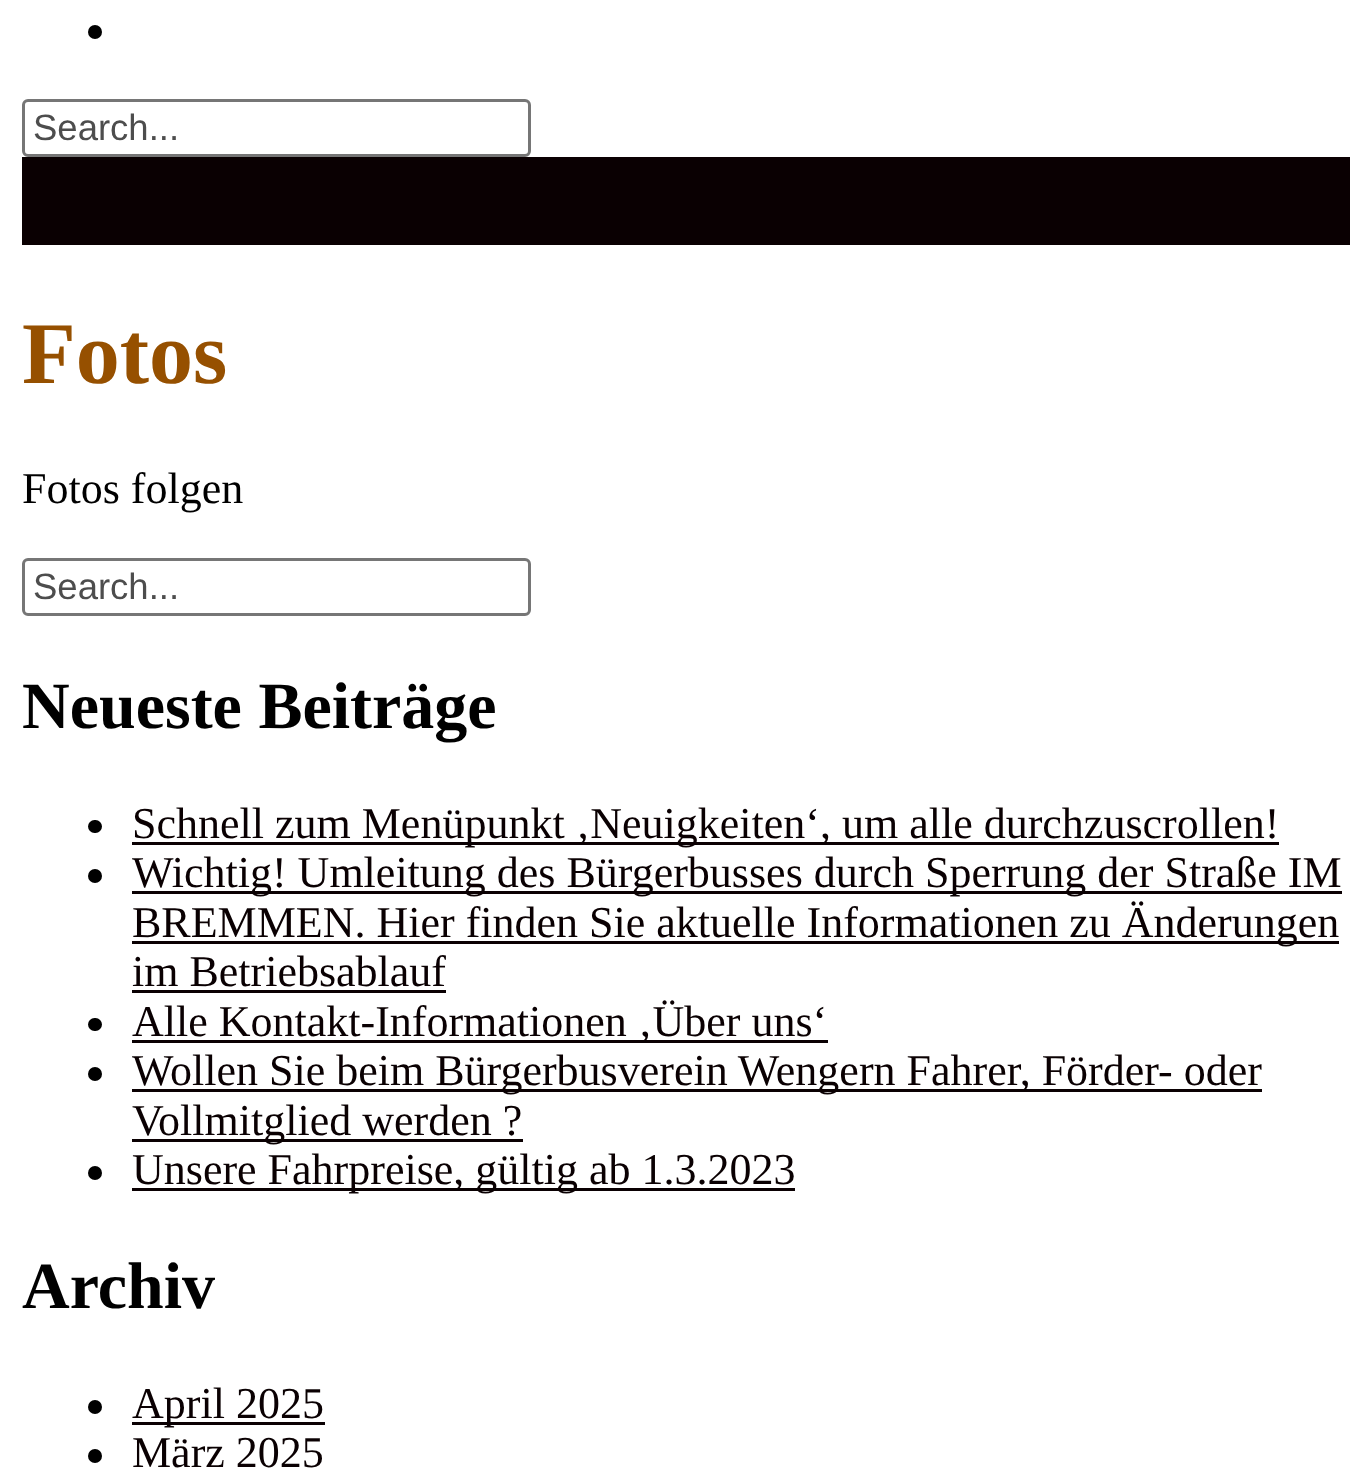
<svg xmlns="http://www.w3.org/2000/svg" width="1370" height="1471">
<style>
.a{font:36.5px Liberation Sans;fill:#4d4d4d}
.b{font:bold 88px Liberation Serif;fill:#965000}
.c{font:44px Liberation Serif;fill:#000}
.d{font:bold 66px Liberation Serif;fill:#000}
.e{font:44px Liberation Serif;fill:#0a0002}
</style>
<rect width="100%" height="100%" fill="#fff"/>
<circle fill="#000" cx="95" cy="32" r="7"/>
<rect fill="none" stroke="#767676" stroke-width="3" x="23.5" y="100.5" width="506" height="55" rx="4.5"/>
<path fill="#0a0002" d="M22 157h1328v88H22z"/>
<rect fill="none" stroke="#767676" stroke-width="3" x="23.5" y="559.5" width="506" height="55" rx="4.5"/>
<rect fill="#000" x="88" y="820" width="14" height="13" rx="6.5"/>
<path fill="#0a0002" d="M132 842h1147v3H132z"/>
<circle fill="#000" cx="95" cy="876" r="7"/>
<path fill="#0a0002" d="M132 891h1210v3H132z"/>
<path fill="#0a0002" d="M132 941h1207v3H132z"/>
<path fill="#0a0002" d="M132 990h314v3H132z"/>
<rect fill="#000" x="88" y="1018" width="14" height="13" rx="6.5"/>
<path fill="#0a0002" d="M132 1040h696v3H132z"/>
<circle fill="#000" cx="95" cy="1074" r="7"/>
<path fill="#0a0002" d="M132 1089h1130v3H132z"/>
<path fill="#0a0002" d="M132 1139h391v3H132z"/>
<circle fill="#000" cx="95" cy="1173" r="7"/>
<path fill="#0a0002" d="M132 1188h663v3H132z"/>
<circle fill="#000" cx="95" cy="1407" r="7"/>
<path fill="#0a0002" d="M132 1422h193v3H132z"/>
<circle fill="#000" cx="95" cy="1456" r="7"/>
<text class="a" x="33" y="140">Search...</text>
<text class="b" x="22" y="383">Fotos</text>
<text class="c" x="22" y="503">Fotos folgen</text>
<text class="a" x="33" y="599">Search...</text>
<text class="d" x="22" y="728">Neueste Beiträge</text>
<text class="e" x="132" y="838">Schnell zum Menüpunkt ‚Neuigkeiten‘, um alle durchzuscrollen!</text>
<text class="e" x="132" y="887">Wichtig! Umleitung des Bürgerbusses durch Sperrung der Straße IM</text>
<text class="e" x="132" y="937">BREMMEN. Hier finden Sie aktuelle Informationen zu Änderungen</text>
<text class="e" x="132" y="986">im Betriebsablauf</text>
<text class="e" x="132" y="1036">Alle Kontakt-Informationen ‚Über uns‘</text>
<text class="e" x="132" y="1085">Wollen Sie beim Bürgerbusverein Wengern Fahrer, Förder- oder</text>
<text class="e" x="132" y="1135">Vollmitglied werden ?</text>
<text class="e" x="132" y="1184">Unsere Fahrpreise, gültig ab 1.3.2023</text>
<text class="d" x="22" y="1308">Archiv</text>
<text class="e" x="132" y="1418">April 2025</text>
<text class="e" x="132" y="1467">März 2025</text>
</svg>
